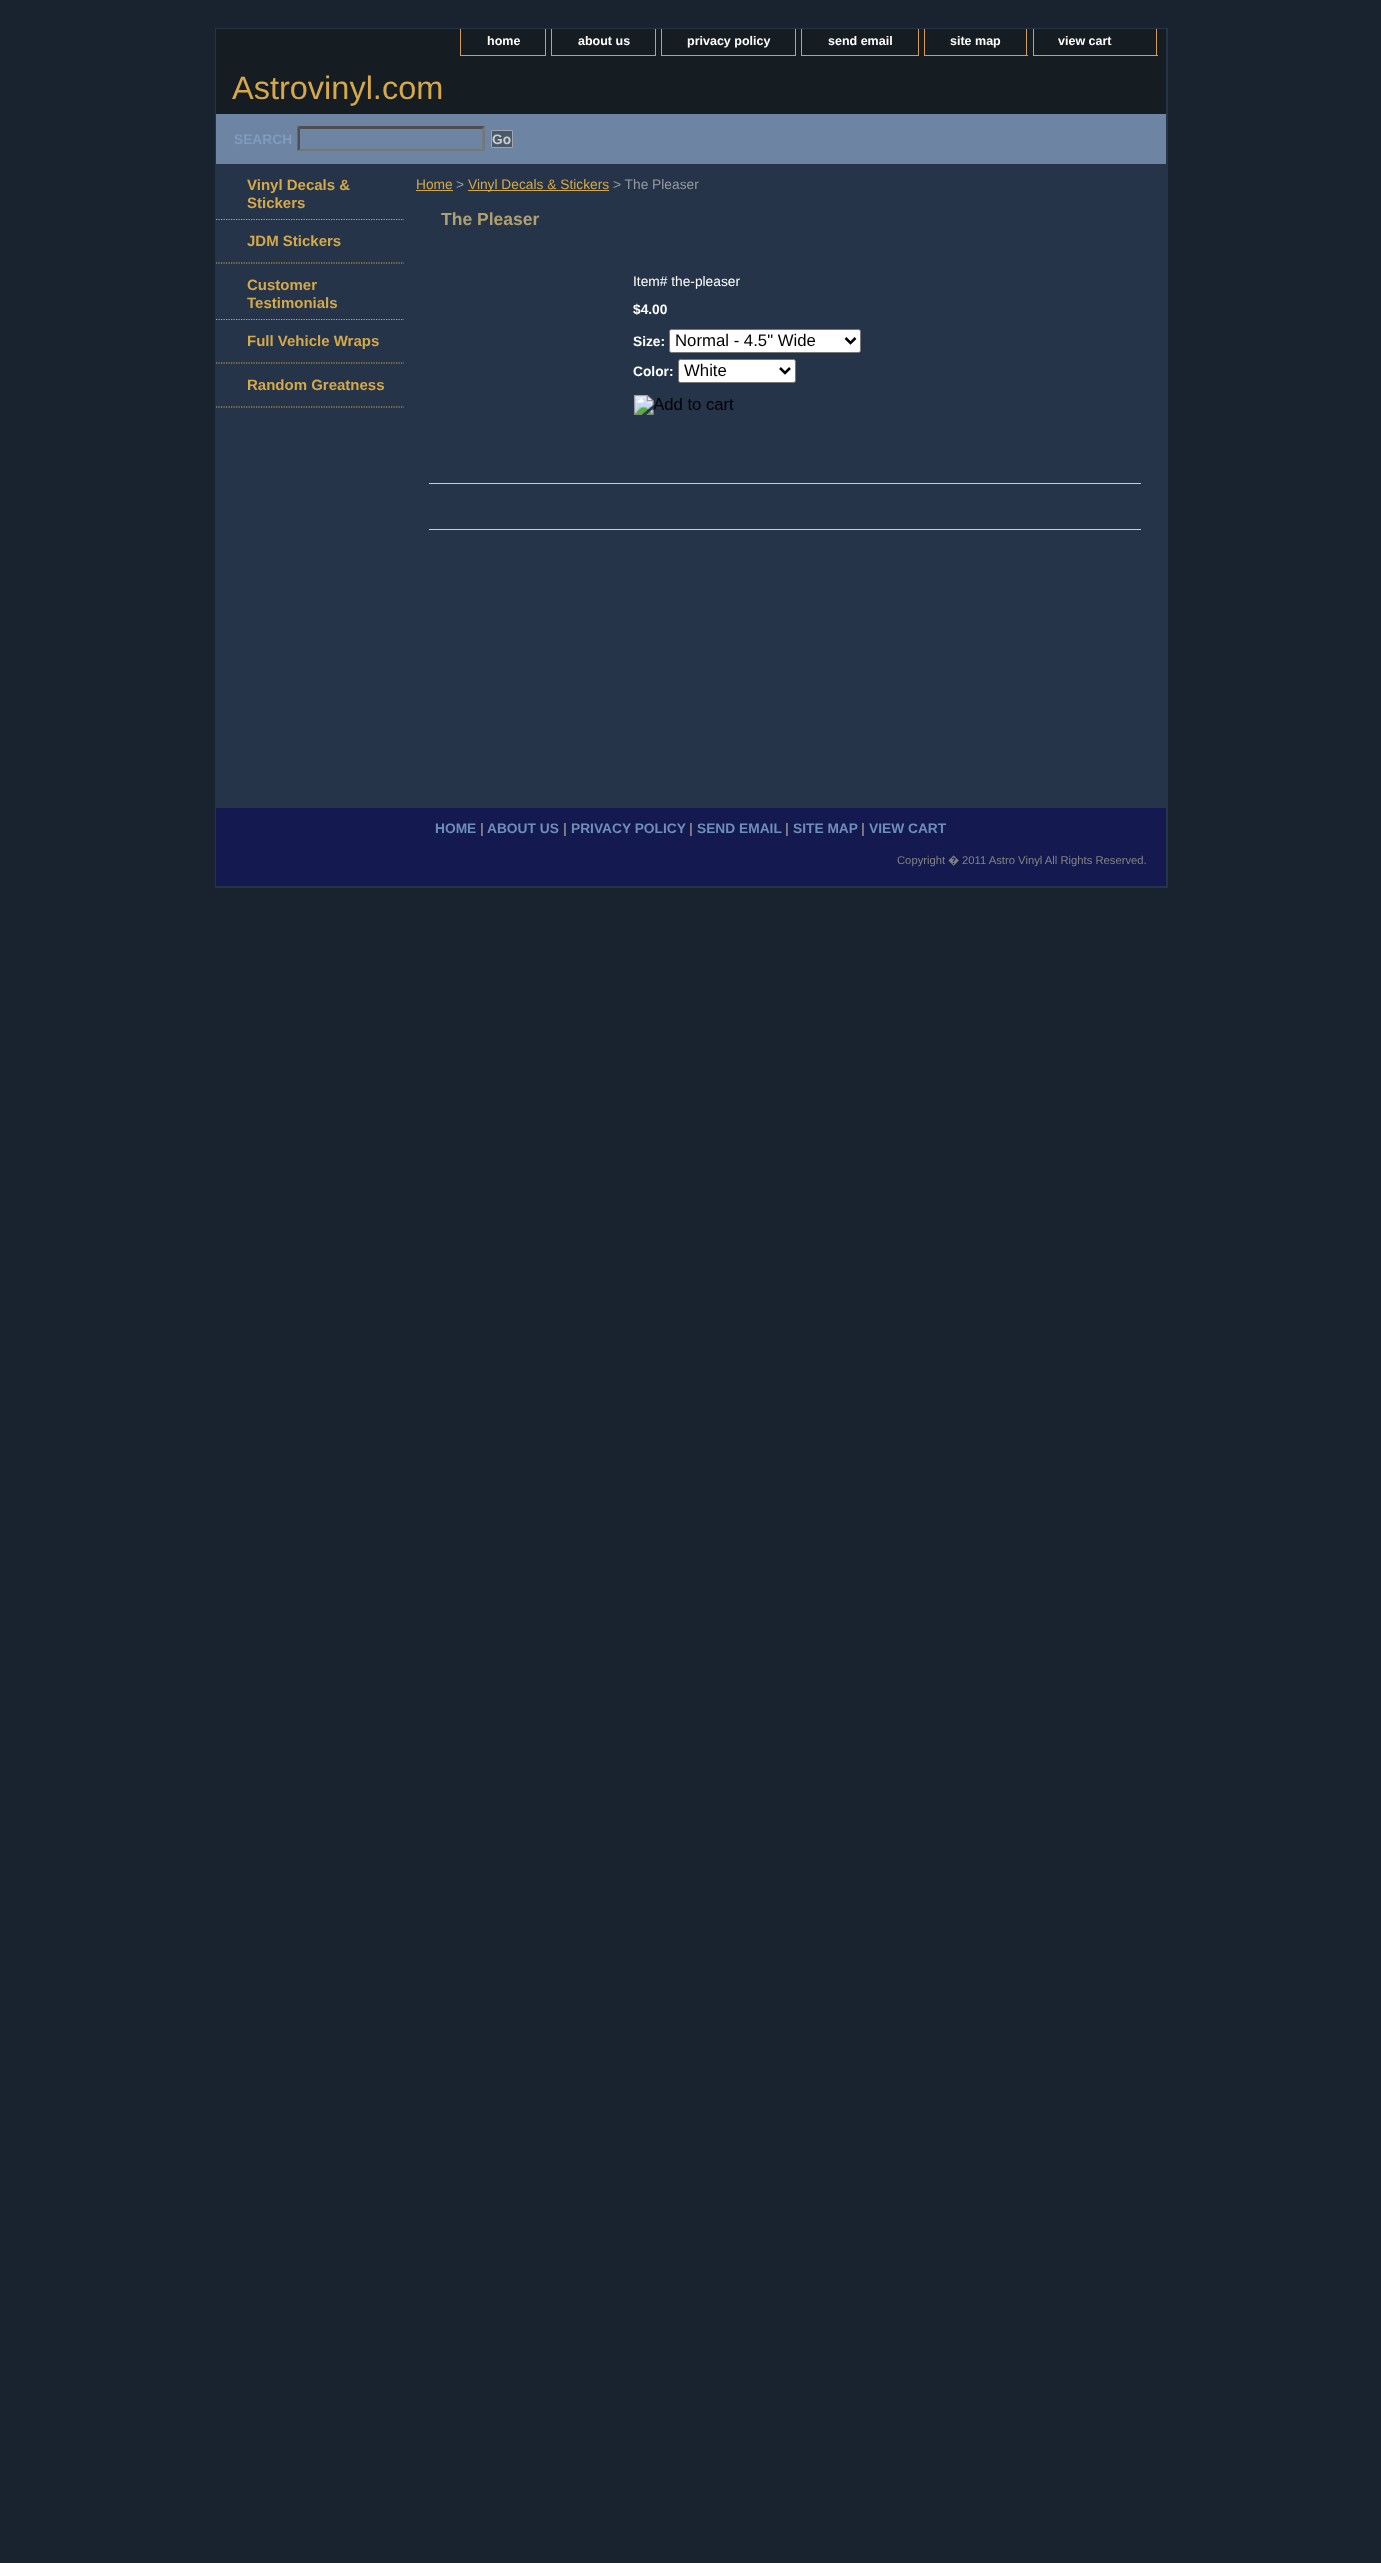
<svg xmlns="http://www.w3.org/2000/svg" width="1381" height="2563">
<style>
.a{font:bold 12.5px Liberation Sans;fill:#fff}
.b{font:32.5px Liberation Sans;fill:#d4a84b}
.c{font:bold 13.75px Liberation Sans;fill:#809bbe}
.d{font:bold 13.75px Liberation Sans;fill:#caced3}
.e{font:bold 15px Liberation Sans;fill:#d4a84b}
.f{font:13.75px Liberation Sans;fill:#d4a84b}
.g{font:13.75px Liberation Sans;fill:#979a9e}
.h{font:bold 17.5px Liberation Sans;fill:#b0a071}
.i{font:13.75px Liberation Sans;fill:#fff}
.j{font:bold 13.75px Liberation Sans;fill:#fff}
.k{font:16.75px Liberation Sans;fill:#000}
.l{font:bold 13.75px Liberation Sans;fill:#6e8eba}
.m{font:bold 13.75px Liberation Sans;fill:#838384}
.n{font:11.25px Liberation Sans;fill:#838384}
.o{font:11.25px Noto Sans;fill:#838384}
</style>
<rect width="100%" height="100%" fill="#192330"/>
<path fill="#253448" d="M215 28h953v860H215z"/>
<path fill="#151c22" d="M216 29h950v85H216z"/>
<path fill="#d29d58" d="M545 29h1v27H545z"/>
<path fill="#d29d58" d="M460 55h86v1H460z"/>
<path fill="#d29d58" d="M460 29h1v27H460z"/>
<path fill="#d29d58" d="M655 29h1v27H655z"/>
<path fill="#d29d58" d="M551 55h105v1H551z"/>
<path fill="#d29d58" d="M551 29h1v27H551z"/>
<path fill="#d29d58" d="M795 29h1v27H795z"/>
<path fill="#d29d58" d="M661 55h135v1H661z"/>
<path fill="#d29d58" d="M661 29h1v27H661z"/>
<path fill="#d29d58" d="M918 29h1v27H918z"/>
<path fill="#d29d58" d="M801 55h118v1H801z"/>
<path fill="#d29d58" d="M801 29h1v27H801z"/>
<path fill="#d29d58" d="M1026 29h1v27H1026z"/>
<path fill="#d29d58" d="M924 55h104v1H924z"/>
<path fill="#d29d58" d="M924 29h1v27H924z"/>
<path fill="#d29d58" d="M1156 29h1v27H1156z"/>
<path fill="#d29d58" d="M1033 55h125v1H1033z"/>
<path fill="#d29d58" d="M1033 29h1v27H1033z"/>
<path fill="#6d84a2" d="M216 114h950v50H216z"/>
<path fill="#4f4f4f" d="M298 126h187l-3 3h-182z"/>
<path fill="#767676" d="M485 126v25l-2.5-2v-20z"/>
<path fill="#767676" d="M485 151h-187l2-2h182z"/>
<path fill="#4f4f4f" d="M297.5 151v-25l2.5 3v20z"/>
<path fill="#4b5967" stroke="#9ca5b2" d="M491.5 130.5h21v17H491.5z"/>
<path fill="none" stroke="#d4a84b" stroke-width="1.2" stroke-dasharray="1.25 1.25" d="M216 219.5h188"/>
<path fill="none" stroke="#d4a84b" stroke-width="1.2" stroke-dasharray="1.25 1.25" d="M216 263h188"/>
<path fill="none" stroke="#d4a84b" stroke-width="1.2" stroke-dasharray="1.25 1.25" d="M216 319.5h188"/>
<path fill="none" stroke="#d4a84b" stroke-width="1.2" stroke-dasharray="1.25 1.25" d="M216 363h188"/>
<path fill="none" stroke="#d4a84b" stroke-width="1.2" stroke-dasharray="1.25 1.25" d="M216 407h188"/>
<path fill="#d4a84b" d="M416 190h37v1H416z"/>
<path fill="#d4a84b" d="M468 190h141v1H468z"/>
<rect fill="#fff" stroke="#767676" x="669.5" y="329.5" width="191" height="23" rx="2"/>
<path fill="none" stroke="#000" stroke-width="2.5" d="M845.5 338l5 5l5-5"/>
<rect fill="#fff" stroke="#767676" x="678.5" y="359.5" width="117" height="23" rx="2"/>
<path fill="none" stroke="#000" stroke-width="2.5" d="M780 368l5 5l5-5"/>
<image href="1.png" x="633" y="395" width="101" height="20"/>
<path fill="#cfcece" d="M429 483h712v1H429z"/>
<path fill="#cfcece" d="M429 529h712v1H429z"/>
<path fill="#141a4f" d="M216 808h950v78H216z"/>
<text class="a" x="487" y="45">home</text>
<text class="a" x="578" y="45">about us</text>
<text class="a" x="687" y="45">privacy policy</text>
<text class="a" x="828" y="45">send email</text>
<text class="a" x="950" y="45">site map</text>
<text class="a" x="1058" y="45">view cart</text>
<text class="b" x="232" y="99">Astrovinyl.com</text>
<text class="c" x="234" y="144">SEARCH</text>
<text class="d" x="492" y="144">Go</text>
<text class="e" x="247" y="190">Vinyl Decals &amp;</text>
<text class="e" x="247" y="208">Stickers</text>
<text class="e" x="247" y="246">JDM Stickers</text>
<text class="e" x="247" y="290">Customer</text>
<text class="e" x="247" y="308">Testimonials</text>
<text class="e" x="247" y="346">Full Vehicle Wraps</text>
<text class="e" x="247" y="390">Random Greatness</text>
<text class="f" x="416" y="189">Home</text>
<text class="g" x="456" y="189">&gt;</text>
<text class="f" x="468" y="189">Vinyl Decals &amp; Stickers</text>
<text class="g" x="613" y="189">&gt; The Pleaser</text>
<text class="h" x="441" y="225">The Pleaser</text>
<text class="i" x="633" y="286">Item# the-pleaser</text>
<text class="j" x="633" y="314">$4.00</text>
<text class="j" x="633" y="346">Size:</text>
<text class="k" x="675" y="346">Normal - 4.5" Wide</text>
<text class="j" x="633" y="376">Color:</text>
<text class="k" x="684" y="376">White</text>
<text class="l" x="435" y="833">HOME</text>
<text class="m" x="480" y="833">|</text>
<text class="l" x="487" y="833">ABOUT US</text>
<text class="m" x="563" y="833">|</text>
<text class="l" x="571" y="833">PRIVACY POLICY</text>
<text class="m" x="689" y="833">|</text>
<text class="l" x="697" y="833">SEND EMAIL</text>
<text class="m" x="785" y="833">|</text>
<text class="l" x="793" y="833">SITE MAP</text>
<text class="m" x="861" y="833">|</text>
<text class="l" x="869" y="833">VIEW CART</text>
<text class="n" x="897" y="864">Copyright</text>
<text class="o" x="948" y="864">�</text>
<text class="n" x="962" y="864">2011 Astro Vinyl All Rights Reserved.</text>
</svg>
